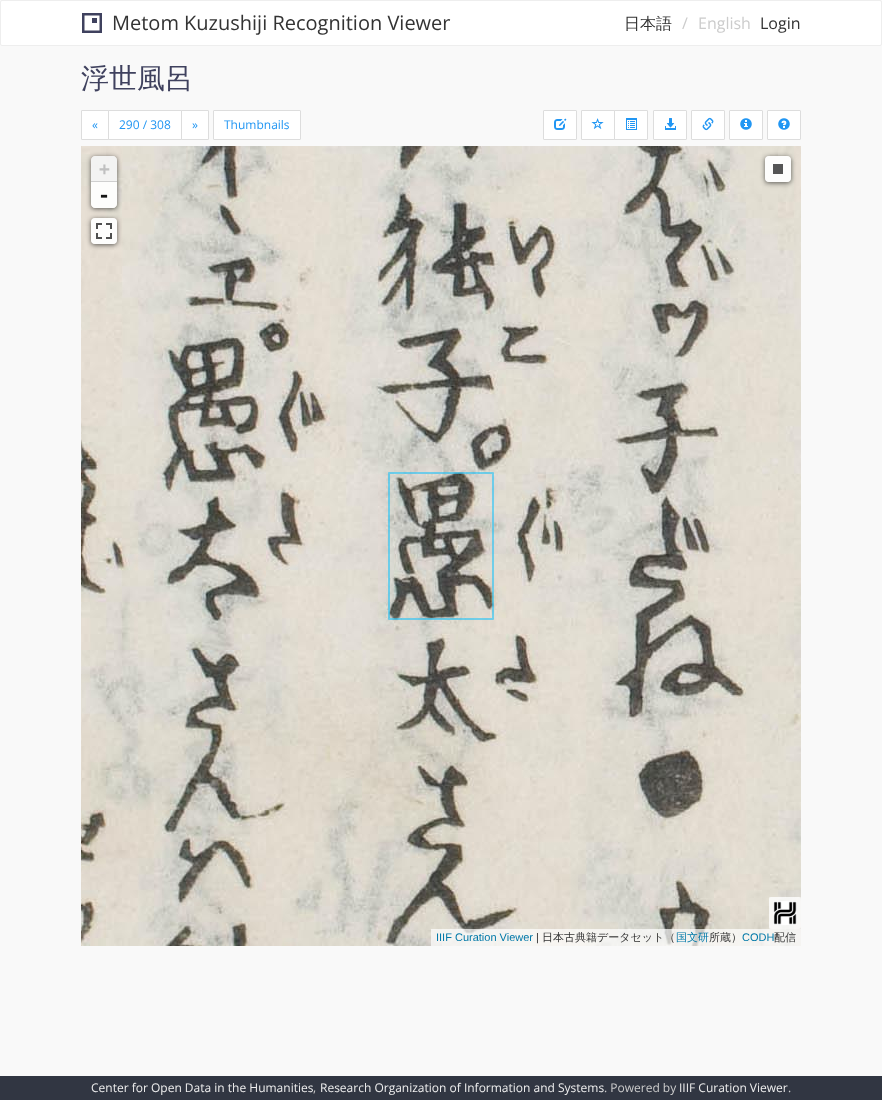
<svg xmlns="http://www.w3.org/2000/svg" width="882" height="1100">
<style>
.a{font:20px Open Sans;fill:#333}
.b{font:500 16px WenQuanYi Zen Hei;fill:#333}
.c{font:16px Open Sans;fill:#ccc}
.d{font:16px Open Sans;fill:#333}
.e{font:500 28px WenQuanYi Zen Hei;fill:#3f415e}
.f{font:12px Open Sans;fill:#2196f3}
.g{font:bold 18px DejaVu Sans Mono;fill:#c0c0c0}
.h{font:bold 20px DejaVu Sans Mono;fill:#151515}
.i{font:11px Liberation Sans;fill:#0078a8}
.j{font:11px Liberation Sans;fill:#333}
.k{font:500 11px WenQuanYi Zen Hei;fill:#333}
.l{font:500 11px WenQuanYi Zen Hei;fill:#0078a8}
.m{font:12px Open Sans;fill:#eee}
.n{font:12px Open Sans;fill:#ccc}
</style>
<defs>
<clipPath id="clip1"><path d="M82 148h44v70h-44zm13 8h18c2 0 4 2 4 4v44c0 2-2 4-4 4h-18c-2 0-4-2-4-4v-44c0-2 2-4 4-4z" clip-rule="evenodd"/></clipPath>
<clipPath id="clip2"><path d="M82 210h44v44h-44zm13 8h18c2 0 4 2 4 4v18c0 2-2 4-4 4h-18c-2 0-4-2-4-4v-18c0-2 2-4 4-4z" clip-rule="evenodd"/></clipPath>
<clipPath id="clip3"><path d="M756 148h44v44h-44zm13 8h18c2 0 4 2 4 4v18c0 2-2 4-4 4h-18c-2 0-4-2-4-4v-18c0-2 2-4 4-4z" clip-rule="evenodd"/></clipPath>
</defs>
<rect width="100%" height="100%" fill="#f9f9f9"/>
<rect fill="#fff" stroke="#eee" x="0.5" y="0.5" width="881" height="45" rx="1.5"/>
<image href="1.png" x="82" y="13" width="20" height="20"/>
<path fill="#fff" stroke="#ddd" d="M82 110.5h26.5v29h-26.5c-.5 0-.5 0-.5-.5v-28c0-.5 0-.5 .5-.5z"/>
<path fill="#fff" stroke="#ddd" d="M108.5 110.5h73v29H108.5z"/>
<path fill="#fff" stroke="#ddd" d="M181.5 110.5h26.5c.5 0 .5 0 .5 .5v28c0 .5 0 .5-.5 .5h-26.5z"/>
<rect fill="#fff" stroke="#ddd" x="213.5" y="110.5" width="87" height="29" rx="0.5"/>
<rect fill="#fff" stroke="#ddd" x="543.5" y="110.5" width="33" height="29" rx="0.5"/>
<image href="2.png" x="554" y="118" width="13" height="12"/>
<path fill="#fff" stroke="#ddd" d="M582 110.5h32.5v29h-32.5c-.5 0-.5 0-.5-.5v-28c0-.5 0-.5 .5-.5z"/>
<image href="3.png" x="591" y="118" width="13" height="11"/>
<path fill="#fff" stroke="#ddd" d="M614.5 110.5h32.5c.5 0 .5 0 .5 .5v28c0 .5 0 .5-.5 .5h-32.5z"/>
<image href="4.png" x="626" y="118" width="11" height="12"/>
<rect fill="#fff" stroke="#ddd" x="653.5" y="110.5" width="33" height="29" rx="0.5"/>
<image href="5.png" x="665" y="118" width="11" height="12"/>
<rect fill="#fff" stroke="#ddd" x="691.5" y="110.5" width="33" height="29" rx="0.5"/>
<image href="6.png" x="702" y="117" width="12" height="14"/>
<rect fill="#fff" stroke="#ddd" x="729.5" y="110.5" width="33" height="29" rx="0.5"/>
<image href="7.png" x="740" y="118" width="12" height="12"/>
<rect fill="#fff" stroke="#ddd" x="767.5" y="110.5" width="33" height="29" rx="0.5"/>
<image href="8.png" x="778" y="118" width="12" height="12"/>
<image href="9.png" x="81" y="146" width="185" height="504"/>
<image href="10.png" x="266" y="146" width="535" height="504"/>
<image href="11.png" x="81" y="650" width="185" height="296"/>
<image href="12.png" x="266" y="650" width="535" height="296"/>
<path fill="none" stroke="#00bfff80" stroke-width="2" stroke-linecap="round" stroke-linejoin="round" d="M389 619v-146h104v146z"/>
<g clip-path="url(#clip1)">
<rect fill="#00000099" filter="blur(2.5px)" x="91" y="157" width="26" height="52" rx="4"/>
</g>
<path fill="#f4f4f4eb" d="M95 156h18c2 0 4 2 4 4v22h-26v-22c0-2 2-4 4-4z"/>
<path fill="#cfcfcf" d="M91 181h26v1H91z"/>
<path fill="#ffffffeb" d="M91 182h26v22c0 2-2 4-4 4h-18c-2 0-4-2-4-4z"/>
<g clip-path="url(#clip2)">
<rect fill="#00000099" filter="blur(2.5px)" x="91" y="219" width="26" height="26" rx="4"/>
</g>
<rect fill="#ffffffeb" x="91" y="218" width="26" height="26" rx="4"/>
<image href="13.png" x="96" y="223" width="16" height="16"/>
<g clip-path="url(#clip3)">
<rect fill="#00000099" filter="blur(2.5px)" x="765" y="157" width="26" height="26" rx="4"/>
</g>
<rect fill="#ffffffeb" x="765" y="156" width="26" height="26" rx="4"/>
<path fill="#555" d="M773 164h10v10H773z"/>
<rect fill="#ffffffb3" x="769" y="897" width="32" height="32" rx="2"/>
<image href="14.png" x="773" y="901" width="24" height="24"/>
<path fill="none" stroke="#ffffff4d" stroke-width="4" d="M771 899h28v28H771z"/>
<path fill="#ffffffb3" d="M431 929h370v17H431z"/>
<path fill="#313642" d="M0 1076h882v24H0z"/>
<text class="a" x="112" y="30">Metom Kuzushiji Recognition Viewer</text>
<text class="b" x="624" y="29">日本語</text>
<text class="c" x="682" y="29">/</text>
<text class="c" x="698" y="29">English</text>
<text class="d" x="760" y="29">Login</text>
<text class="e" x="81" y="88">浮世風呂</text>
<text class="f" x="92" y="129">«</text>
<text class="f" x="119" y="129">290 / 308</text>
<text class="f" x="192" y="129">»</text>
<text class="f" x="224" y="129">Thumbnails</text>
<text class="g" x="99" y="175">+</text>
<text class="h" x="98" y="202">-</text>
<text class="i" x="436" y="941">IIIF Curation Viewer</text>
<text class="j" x="536" y="941">|</text>
<text class="k" x="542" y="941">日本古典籍データセット（</text>
<text class="l" x="676" y="941">国文研</text>
<text class="k" x="709" y="941">所蔵）</text>
<text class="i" x="742" y="941">CODH</text>
<text class="k" x="774" y="941">配信</text>
<text class="m" x="91" y="1092">Center for Open Data in the Humanities</text>
<text class="n" x="313" y="1092">,</text>
<text class="m" x="320" y="1092">Research Organization of Information and Systems</text>
<text class="n" x="604" y="1092">. Powered by</text>
<text class="m" x="679" y="1092">IIIF Curation Viewer</text>
<text class="n" x="788" y="1092">.</text>
</svg>
